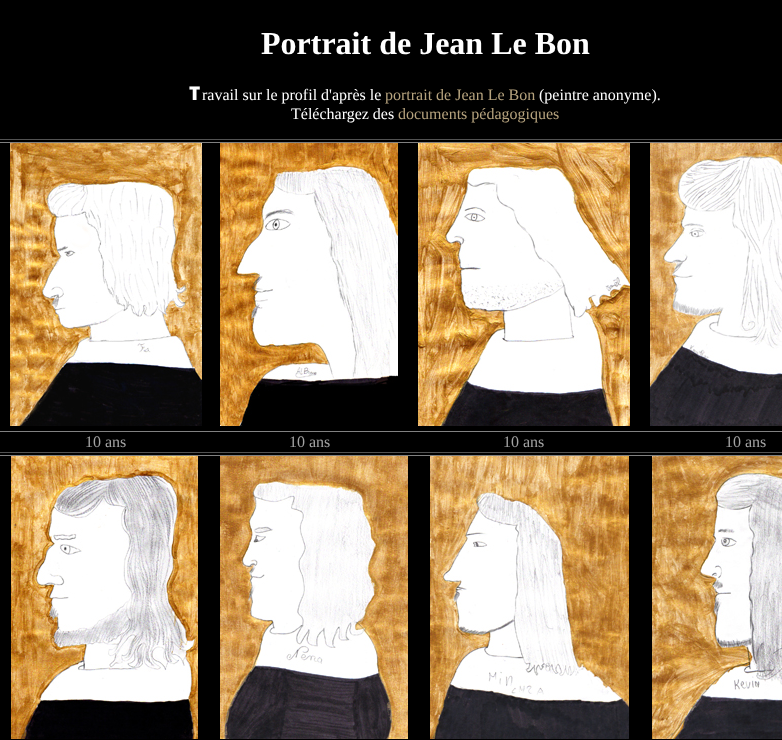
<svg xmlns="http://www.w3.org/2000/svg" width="782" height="740">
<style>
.a{font:bold 32px Liberation Serif;fill:#fff}
.b{font:900 19px Noto Sans;fill:#fff}
.c{font:16px Liberation Serif;fill:#fff}
.d{font:16px Liberation Serif;fill:#b6a37e}
.e{font:16px Liberation Serif;fill:#a3a3a3}
</style>
<rect width="100%" height="100%" fill="#000"/>
<path fill="#525252" d="M0 139h782v1H0z"/>
<path fill="#808080" d="M0 142h782v1H0z"/>
<image href="1.png" x="650" y="143" width="132" height="283"/>
<image href="2.png" x="10" y="143" width="192" height="283"/>
<image href="3.png" x="220" y="143" width="178" height="283"/>
<image href="4.png" x="418" y="143" width="212" height="283"/>
<path fill="#808080" d="M0 431h782v1H0z"/>
<path fill="#525252" d="M0 452h782v1H0z"/>
<path fill="#808080" d="M0 455h782v1H0z"/>
<image href="5.png" x="652" y="456" width="130" height="283"/>
<image href="6.png" x="11" y="456" width="187" height="283"/>
<image href="7.png" x="220" y="456" width="188" height="283"/>
<image href="8.png" x="430" y="456" width="199" height="283"/>
<text class="a" x="261" y="54">Portrait de Jean Le Bon</text>
<text class="b" x="189" y="100">T</text>
<text class="c" x="202" y="100">ravail sur le profil d'après le</text>
<text class="d" x="385" y="100">portrait de Jean Le Bon</text>
<text class="c" x="539" y="100">(peintre anonyme).</text>
<text class="c" x="291" y="119">Téléchargez des</text>
<text class="d" x="398" y="119">documents pédagogiques</text>
<text class="e" x="85" y="447">10 ans</text>
<text class="e" x="289" y="447">10 ans</text>
<text class="e" x="503" y="447">10 ans</text>
<text class="e" x="725" y="447">10 ans</text>
</svg>
